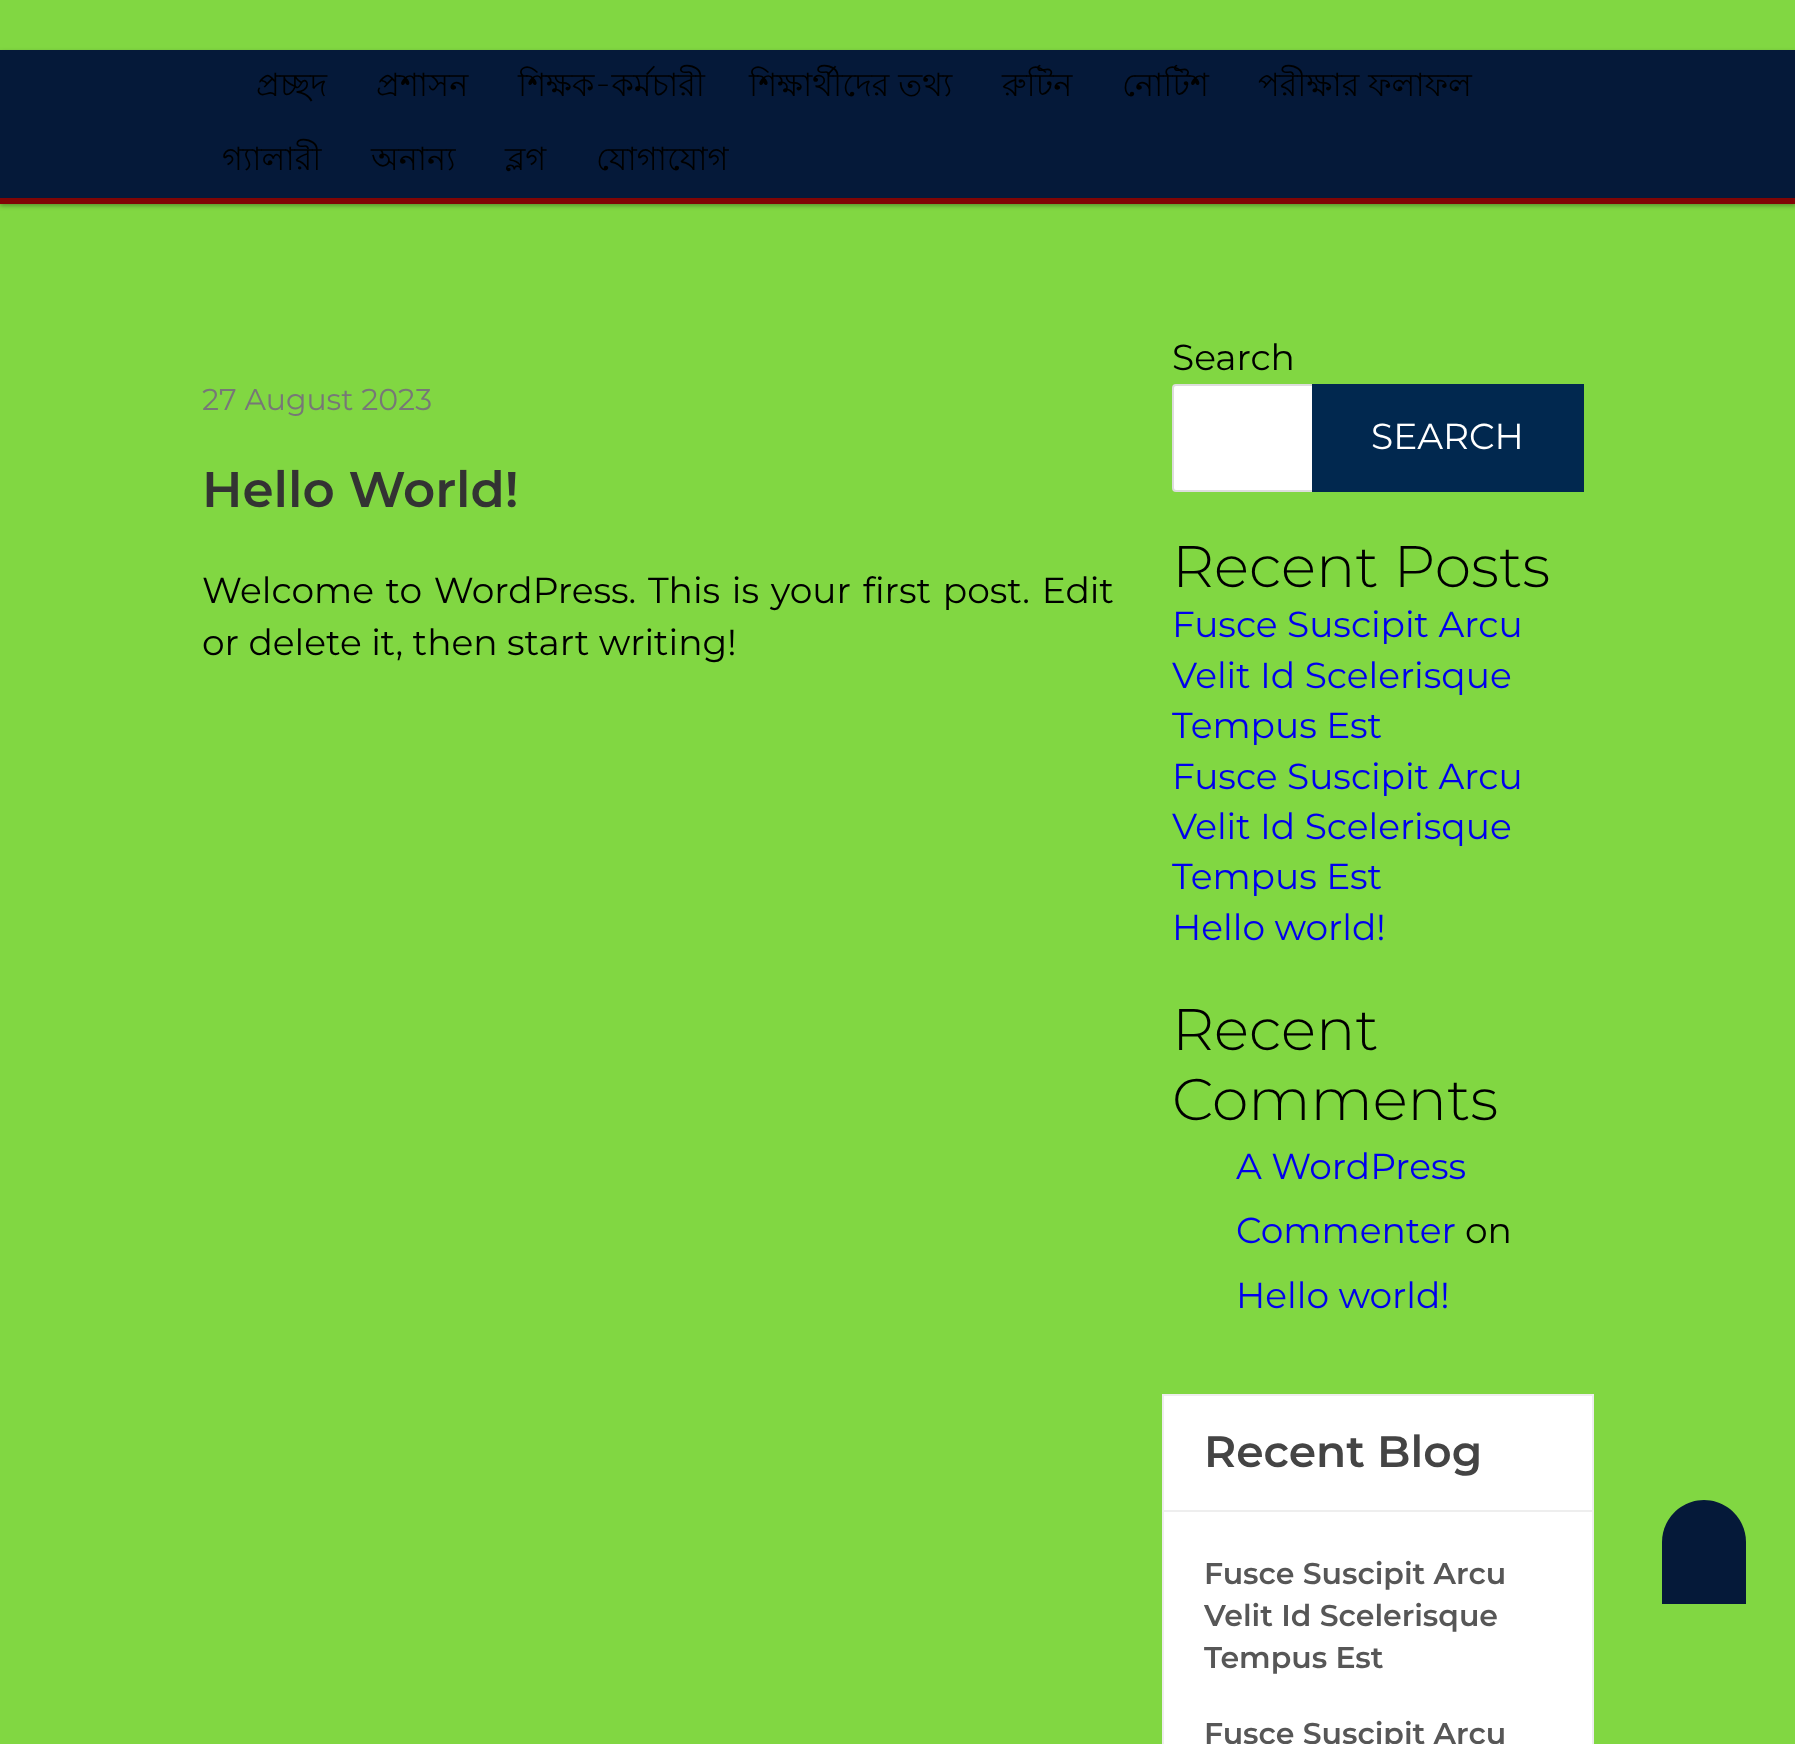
<svg xmlns="http://www.w3.org/2000/svg" width="1795" height="1744">
<style>
.a{font:32px Lohit Bengali;fill:#000}
.b{font:30px Montserrat;fill:#777}
.c{font:600 50px Montserrat;fill:#333}
.d{font:36px Montserrat;fill:#000}
.e{font:36px Montserrat;fill:#fff}
.f{font:300 58.5px Montserrat;fill:#000}
.g{font:36px Montserrat;fill:#00e}
.h{font:600 44px Montserrat;fill:#444}
.i{font:600 30px Montserrat;fill:#575757}
</style>
<rect width="100%" height="100%" fill="#81d742"/>
<path fill="#0000004d" filter="blur(2px)" d="M0 52h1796v154H0z"/>
<path fill="#051939" d="M0 50h1795v148H0z"/>
<path fill="#800505" d="M0 198h1795v6H0z"/>
<rect fill="#fff" stroke="#ddd" stroke-width="2" x="1173" y="385" width="148" height="106" rx="3"/>
<path fill="#01284f" d="M1312 384h272v108H1312z"/>
<path fill="#fff" stroke="#eee" stroke-width="2" d="M1163 1395h430v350H1163z"/>
<path fill="#eee" d="M1164 1510h428v2H1164z"/>
<path fill="#051939" d="M1704 1500c23 0 42 19 42 42v62h-84v-62c0-23 19-42 42-42z"/>
<text class="a" x="256" y="96">প্রচ্ছদ</text>
<text class="a" x="376" y="96">প্রশাসন</text>
<text class="a" x="518" y="96">শিক্ষক-কর্মচারী</text>
<text class="a" x="749" y="96">শিক্ষার্থীদের তথ্য</text>
<text class="a" x="1002" y="96">রুটিন</text>
<text class="a" x="1122" y="96">নোটিশ</text>
<text class="a" x="1258" y="96">পরীক্ষার ফলাফল</text>
<text class="a" x="222" y="170">গ্যালারী</text>
<text class="a" x="371" y="170">অনান্য</text>
<text class="a" x="505" y="170">ব্লগ</text>
<text class="a" x="596" y="170">যোগাযোগ</text>
<text class="b" x="202" y="410">27 August 2023</text>
<text class="c" x="202" y="507">Hello World!</text>
<text class="d" x="202" y="603" word-spacing="2.25">Welcome to WordPress. This is your first post. Edit</text>
<text class="d" x="202" y="655">or delete it, then start writing!</text>
<text class="d" x="1172" y="370">Search</text>
<text class="e" x="1371" y="449">SEARCH</text>
<text class="f" x="1172" y="587">Recent Posts</text>
<text class="g" x="1172" y="637">Fusce Suscipit Arcu</text>
<text class="g" x="1172" y="688">Velit Id Scelerisque</text>
<text class="g" x="1172" y="738">Tempus Est</text>
<text class="g" x="1172" y="789">Fusce Suscipit Arcu</text>
<text class="g" x="1172" y="839">Velit Id Scelerisque</text>
<text class="g" x="1172" y="889">Tempus Est</text>
<text class="g" x="1172" y="940">Hello world!</text>
<text class="f" x="1172" y="1050">Recent</text>
<text class="f" x="1172" y="1120">Comments</text>
<text class="g" x="1236" y="1179">A WordPress</text>
<text class="g" x="1236" y="1243">Commenter</text>
<text class="d" x="1465" y="1243">on</text>
<text class="g" x="1236" y="1308">Hello world!</text>
<text class="h" x="1204" y="1467">Recent Blog</text>
<text class="i" x="1204" y="1584">Fusce Suscipit Arcu</text>
<text class="i" x="1204" y="1626">Velit Id Scelerisque</text>
<text class="i" x="1204" y="1668">Tempus Est</text>
<text class="i" x="1204" y="1744">Fusce Suscipit Arcu</text>
</svg>
